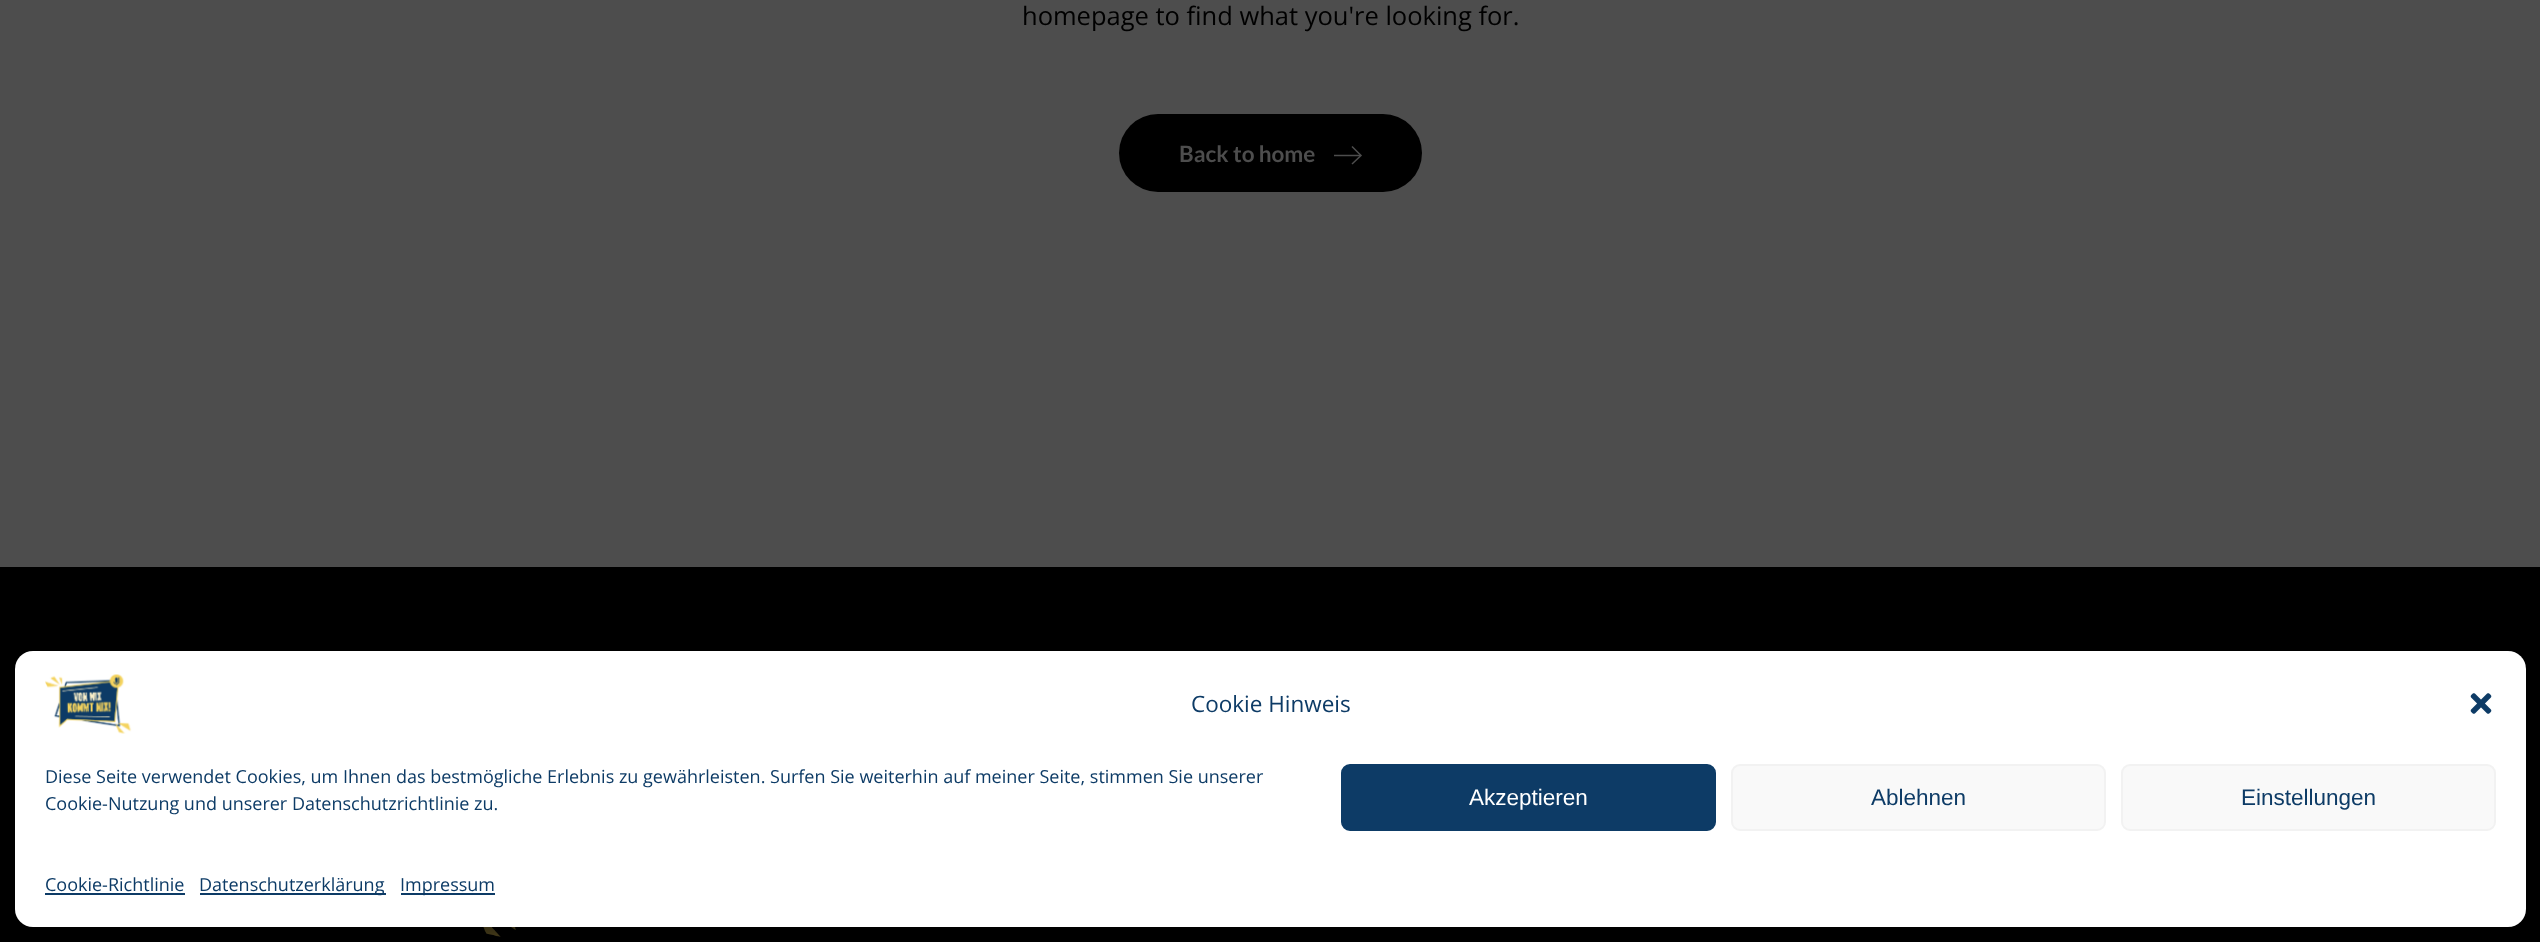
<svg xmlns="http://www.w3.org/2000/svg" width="2540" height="942">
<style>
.a{font:25.5px Open Sans;fill:#000}
.b{font:bold 22.5px Lato;fill:#4d4d4d}
.c{font:22.5px Open Sans;fill:#0d3b66}
.d{font:18px Open Sans;fill:#0d3b66}
.e{font:22.5px Liberation Sans;fill:#fff}
.f{font:22.5px Liberation Sans;fill:#0d3b66}
</style>
<defs>
<clipPath id="clip1"><path d="M1334 146h28v19H1334z"/></clipPath>
</defs>
<rect width="100%" height="100%" fill="#4d4d4d"/>
<rect fill="#000" x="1119" y="114" width="303" height="78" rx="39"/>
<g clip-path="url(#clip1)">
<path fill="none" stroke="#4d4d4d" stroke-width="1.5" d="M1360 155.5h-26.5"/>
</g>
<path fill="none" stroke="#4d4d4d" stroke-width="1.5" d="M1352 146.5l9 9l-9 8.5"/>
<path fill="#000" d="M0 567h2540v375H0z"/>
<image href="1.png" x="483" y="927" width="33" height="10"/>
<rect fill="#0000003b" filter="blur(4.5px)" x="15" y="660" width="2511" height="276" rx="18"/>
<rect fill="#fff" x="15" y="651" width="2511" height="276" rx="18"/>
<image href="2.png" x="45" y="674" width="87" height="60"/>
<image href="3.png" x="2470" y="693" width="22" height="21"/>
<rect fill="#0d3b66" stroke="#0d3b66" stroke-width="2" x="1342" y="765" width="373" height="65" rx="8"/>
<rect fill="#f9f9f9" stroke="#f2f2f2" stroke-width="2" x="1732" y="765" width="373" height="65" rx="8"/>
<rect fill="#f9f9f9" stroke="#f2f2f2" stroke-width="2" x="2122" y="765" width="373" height="65" rx="8"/>
<path fill="#0d3b66" d="M45 893h140v2H45z"/>
<path fill="#0d3b66" d="M200 893h186v2H200z"/>
<path fill="#0d3b66" d="M401 893h94v2H401z"/>
<text class="a" x="1022" y="25">homepage to find what you're looking for.</text>
<text class="b" x="1179" y="162">Back to home</text>
<text class="c" x="1191" y="712">Cookie Hinweis</text>
<text class="d" x="45" y="783">Diese Seite verwendet Cookies, um Ihnen das bestmögliche Erlebnis zu gewährleisten. Surfen Sie weiterhin auf meiner Seite, stimmen Sie unserer</text>
<text class="d" x="45" y="810">Cookie-Nutzung und unserer Datenschutzrichtlinie zu.</text>
<text class="e" x="1469" y="805">Akzeptieren</text>
<text class="f" x="1871" y="805">Ablehnen</text>
<text class="f" x="2241" y="805">Einstellungen</text>
<text class="d" x="45" y="891">Cookie-Richtlinie</text>
<text class="d" x="199" y="891">Datenschutzerklärung</text>
<text class="d" x="400" y="891">Impressum</text>
</svg>
